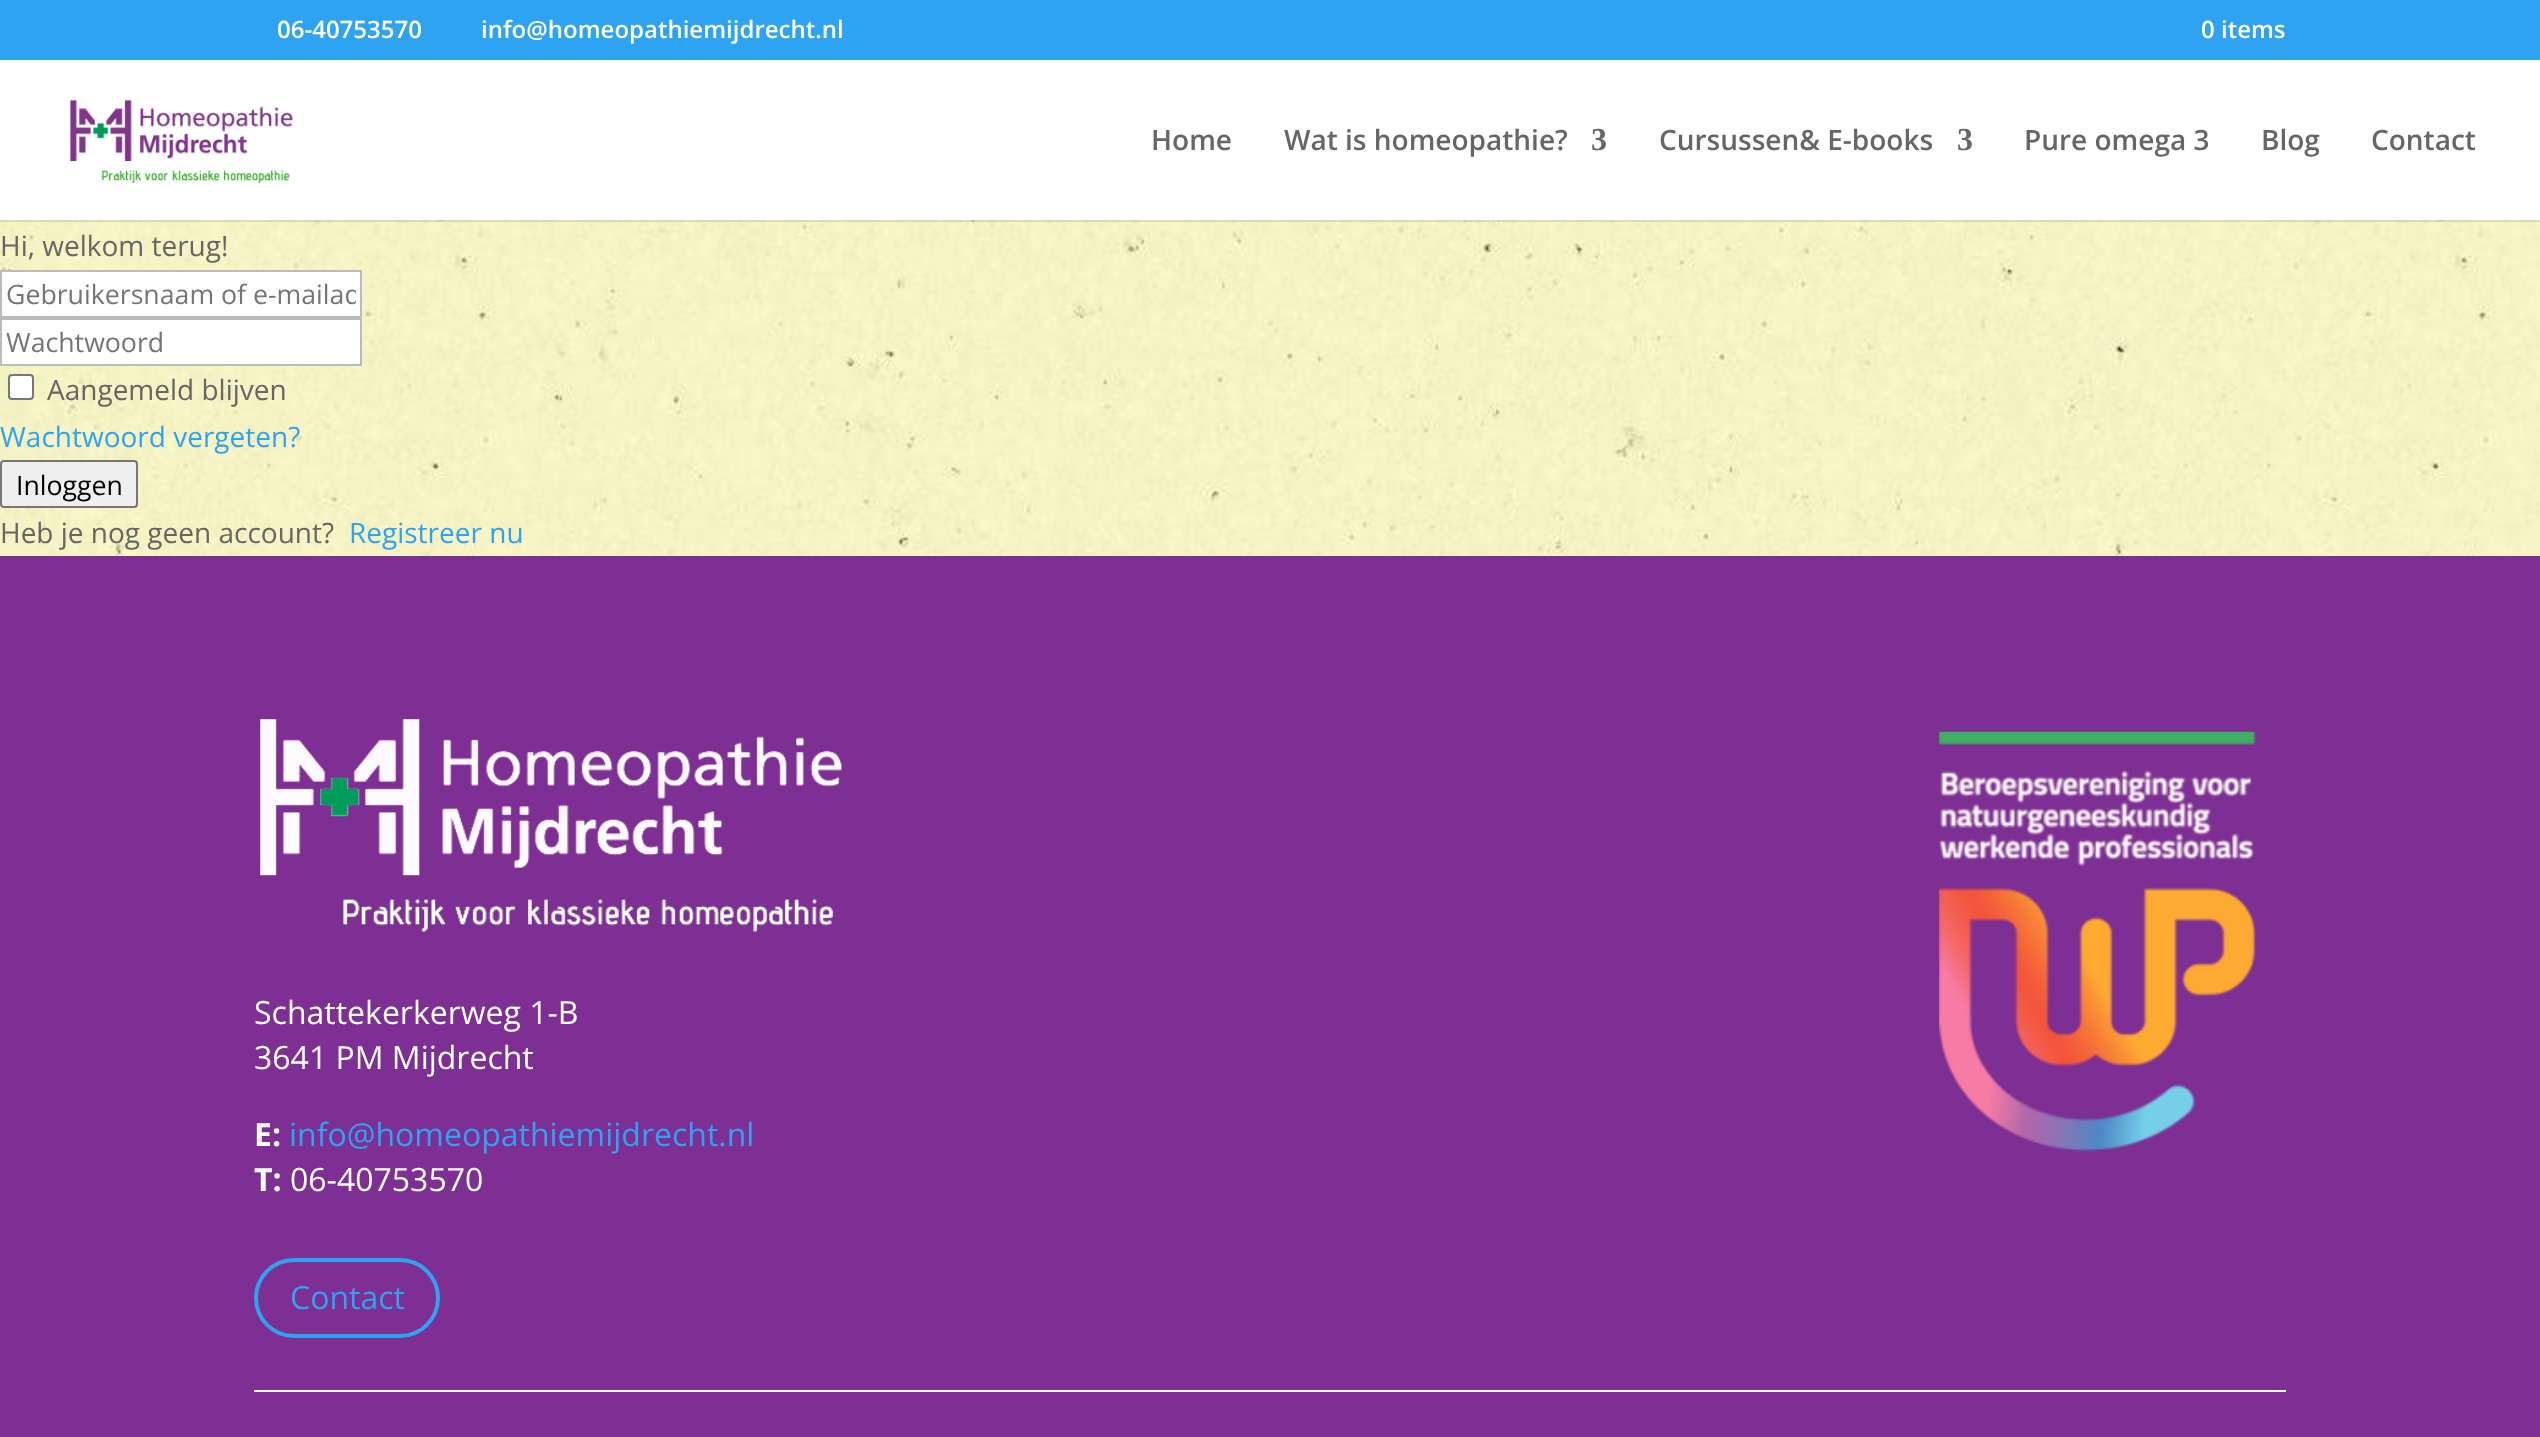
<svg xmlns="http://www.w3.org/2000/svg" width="2540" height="1437">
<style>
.a{font:600 24px Open Sans;fill:#fff}
.b{font:600 28px Open Sans;fill:#666}
.c{font:bold 32px Liberation Serif;fill:#666}
.d{font:28px Open Sans;fill:#666}
.e{font:26.7px Open Sans;fill:#757575}
.f{font:28px Open Sans;fill:#2ea3f2}
.g{font:26.7px Open Sans;fill:#000}
.h{font:32px Open Sans;fill:#fff}
.i{font:bold 32px Open Sans;fill:#fff}
.j{font:32px Open Sans;fill:#2ea3f2}
</style>
<defs>
<clipPath id="clip1"><path d="M6 276h350v36H6z"/></clipPath>
</defs>
<rect width="100%" height="100%" fill="#fff"/>
<image href="1.png" x="0" y="220" width="2540" height="336"/>
<path fill="#2ea3f2" d="M0 0h2540v60H0z"/>
<path fill="#0000001a" d="M0 220h2540v2H0z"/>
<image href="2.png" x="69" y="99" width="224" height="85"/>
<path fill="#fff" stroke="#bbb" stroke-width="2" d="M1 271h360v46H1z"/>
<path fill="#fff" stroke="#bbb" stroke-width="2" d="M1 319h360v46H1z"/>
<rect fill="#fff" stroke="#767676" stroke-width="2" x="9" y="375" width="24" height="24" rx="3"/>
<rect fill="#efefef" stroke="#767676" stroke-width="2" x="1" y="461" width="136" height="46" rx="3"/>
<path fill="#7d2f93" d="M0 556h2540v881H0z"/>
<image href="3.png" x="260" y="719" width="582" height="213"/>
<rect fill="none" stroke="#2ea3f2" stroke-width="4" x="256" y="1260" width="182" height="76" rx="38"/>
<image href="4.png" x="1939" y="731" width="317" height="421"/>
<path fill="#fff" d="M254 1390h2032v2H254z"/>
<text class="a" x="277" y="38">06-40753570</text>
<text class="a" x="481" y="38">info@homeopathiemijdrecht.nl</text>
<text class="a" x="2201" y="38">0 items</text>
<text class="b" x="1151" y="150">Home</text>
<text class="b" x="1284" y="150">Wat is homeopathie?</text>
<text class="c" x="1591" y="150">3</text>
<text class="b" x="1659" y="150">Cursussen&amp; E-books</text>
<text class="c" x="1957" y="150">3</text>
<text class="b" x="2024" y="150">Pure omega 3</text>
<text class="b" x="2261" y="150">Blog</text>
<text class="b" x="2371" y="150">Contact</text>
<text class="d" x="0" y="256">Hi, welkom terug!</text>
<g clip-path="url(#clip1)">
<text class="e" x="6" y="304">Gebruikersnaam of e-mailad</text>
</g>
<text class="e" x="6" y="352">Wachtwoord</text>
<text class="d" x="47" y="400">Aangemeld blijven</text>
<text class="f" x="0" y="447">Wachtwoord vergeten?</text>
<text class="g" x="16" y="495">Inloggen</text>
<text class="d" x="0" y="543">Heb je nog geen account?</text>
<text class="f" x="349" y="543">Registreer nu</text>
<text class="h" x="254" y="1024">Schattekerkerweg 1-B</text>
<text class="h" x="254" y="1069">3641 PM Mijdrecht</text>
<text class="i" x="254" y="1146">E:</text>
<text class="j" x="289" y="1146">info@homeopathiemijdrecht.nl</text>
<text class="i" x="254" y="1191">T:</text>
<text class="h" x="290" y="1191">06-40753570</text>
<text class="j" x="290" y="1309">Contact</text>
</svg>
